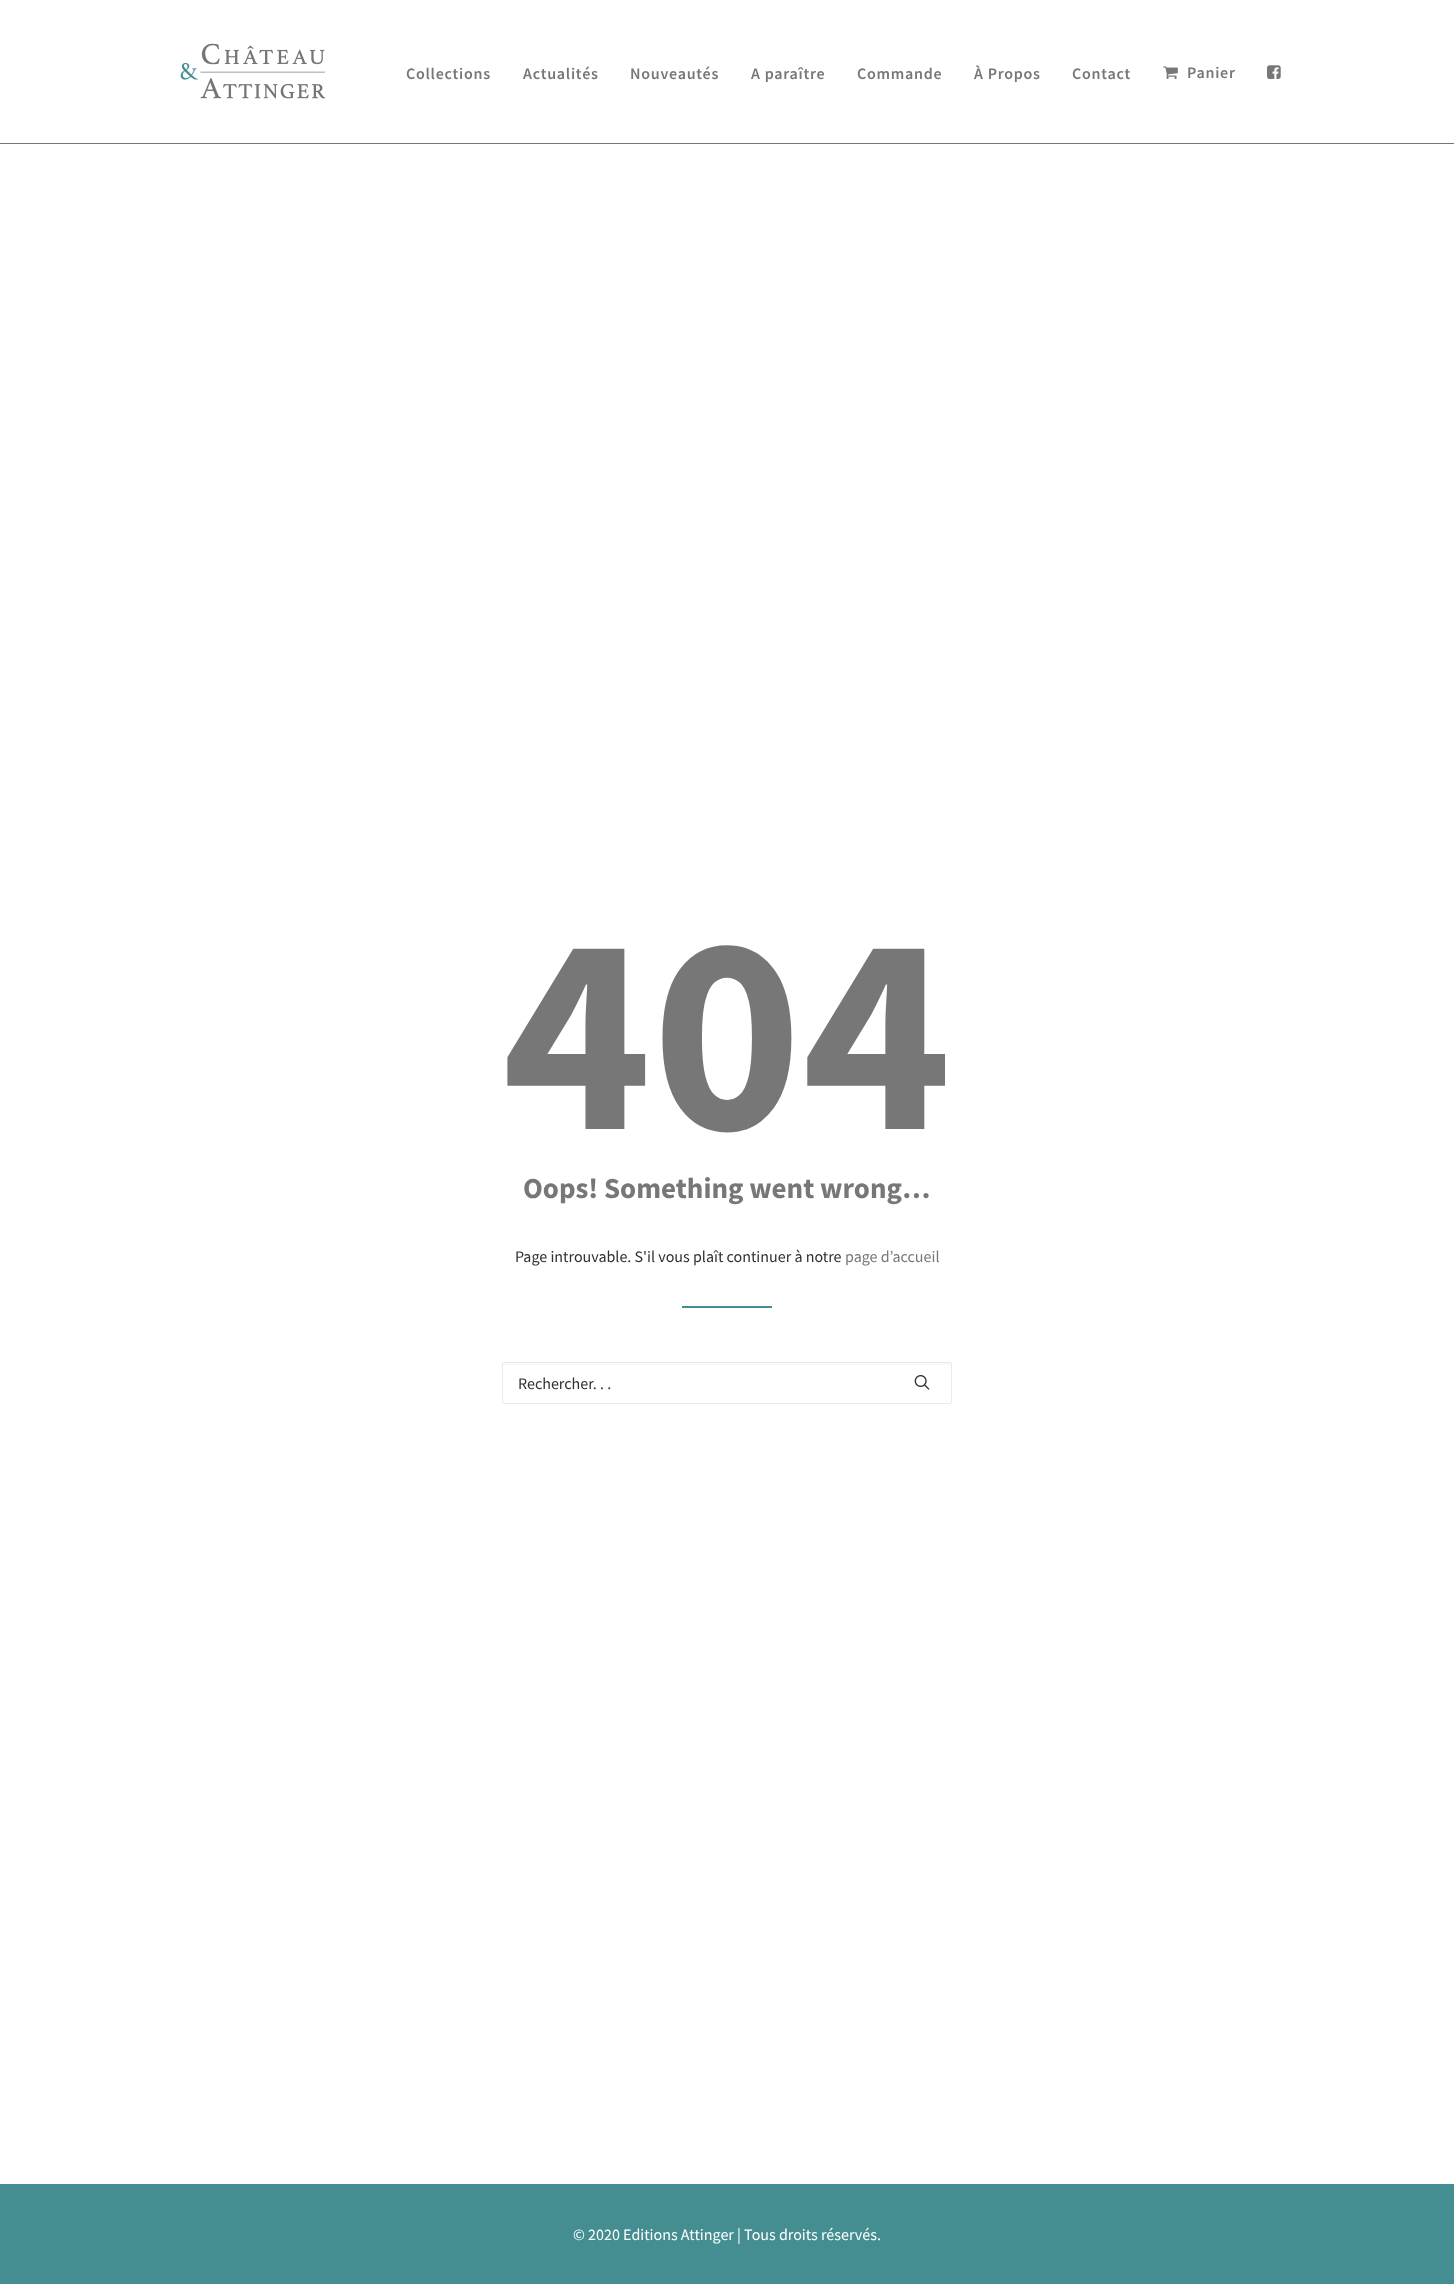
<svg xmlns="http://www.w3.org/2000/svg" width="1454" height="2284">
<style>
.a{font:600 16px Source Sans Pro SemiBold;letter-spacing:0.75px;fill:#777}
.b{font:bold 284px Source Sans Pro;fill:#777}
.c{font:bold 29px Source Sans Pro;fill:#777}
.d{font:16px Source Sans Pro;fill:#303030}
.e{font:16px Source Sans Pro;fill:#777}
.f{font:16px Source Sans Pro;fill:#fff}
</style>
<rect width="100%" height="100%" fill="#fff"/>
<path fill="#777" d="M0 143h1454v1H0z"/>
<image href="1.png" x="180" y="43" width="146" height="56"/>
<image href="2.png" x="1163" y="66" width="15" height="13"/>
<image href="3.png" x="1267" y="65" width="14" height="14"/>
<path fill="#448e91" d="M682 1306h90v2H682z"/>
<path fill="#f9f9f9" d="M504 1365h446c1 0 1 0 1 1c0-1 0-3-1-3h-446h-1v3c0-1 0-1 1-1z"/>
<rect fill="none" stroke="#eaeaea" x="502.5" y="1362.5" width="449" height="41" rx="1.5"/>
<image href="4.png" x="914" y="1375" width="16" height="15"/>
<path fill="#448e91" d="M0 2184h1454v100H0z"/>
<text class="a" x="406" y="79">Collections</text>
<text class="a" x="523" y="79">Actualités</text>
<text class="a" x="630" y="79">Nouveautés</text>
<text class="a" x="751" y="79">A paraître</text>
<text class="a" x="857" y="79">Commande</text>
<text class="a" x="974" y="79">À Propos</text>
<text class="a" x="1072" y="79">Contact</text>
<text class="a" x="1187" y="78">Panier</text>
<text class="b" x="502" y="1129">404</text>
<text class="c" x="523" y="1198">Oops! Something went wrong…</text>
<text class="d" x="515" y="1262">Page introuvable. S'il vous plaît continuer à notre</text>
<text class="e" x="845" y="1262">page d’accueil</text>
<text class="d" x="518" y="1389">Rechercher. . .</text>
<text class="f" x="573" y="2240">© 2020 Editions Attinger | Tous droits réservés.</text>
</svg>
